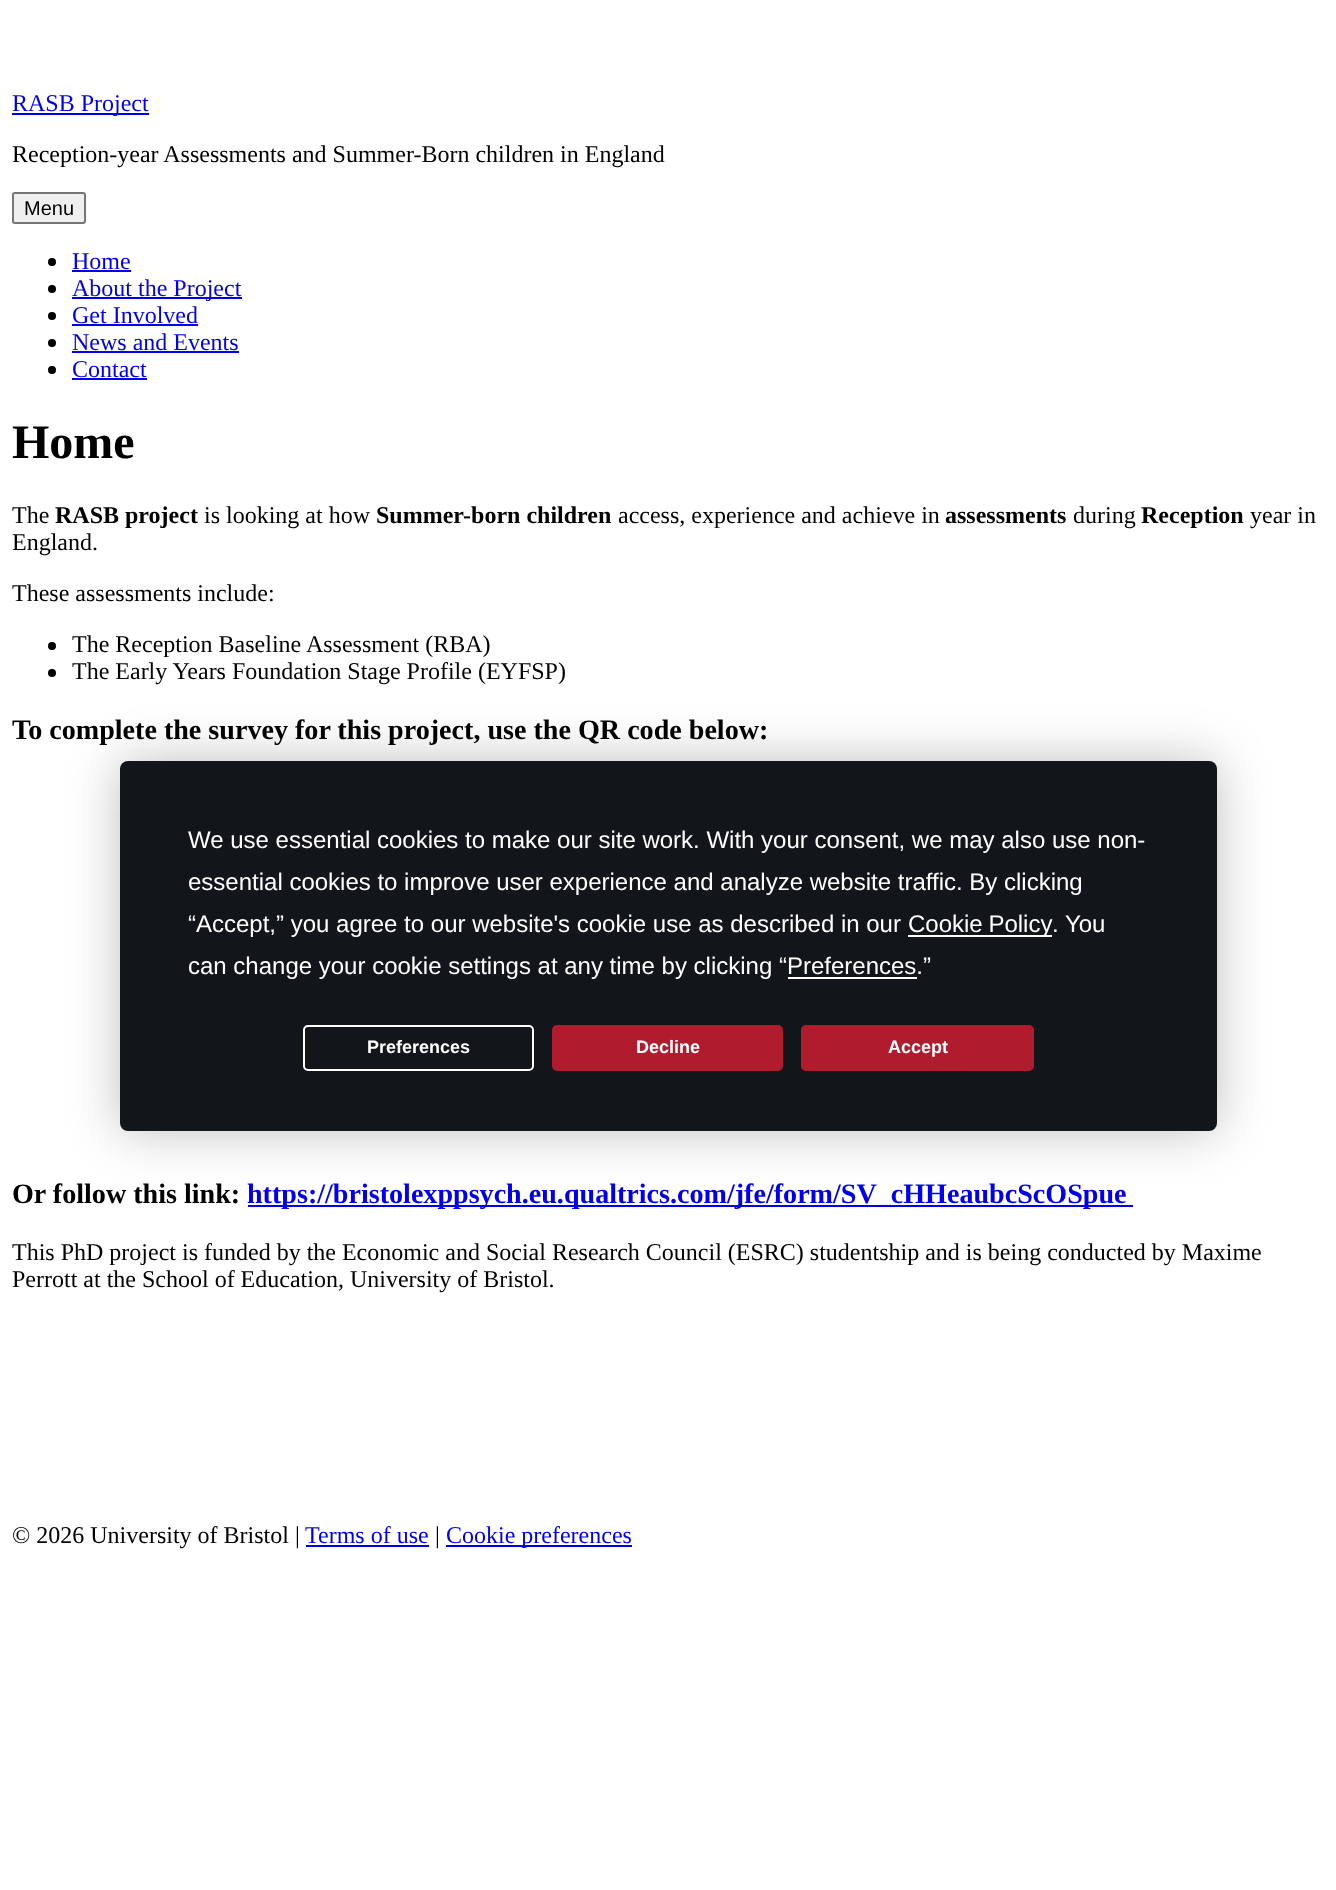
<svg xmlns="http://www.w3.org/2000/svg" width="1336" height="1890">
<style>
.a{font:24px Liberation Serif;fill:#00e}
.b{font:24px Liberation Serif;fill:#000}
.c{font:20px Liberation Sans;fill:#000}
.d{font:bold 48px Liberation Serif;fill:#000}
.e{font:bold 24px Liberation Serif;fill:#000}
.f{font:bold 28.1px Liberation Serif;fill:#000}
.g{font:bold 28.1px Liberation Serif;fill:#00e}
.h{font:24px Liberation Sans;fill:#fff}
.i{font:bold 18px Liberation Sans;fill:#fff}
</style>
<rect width="100%" height="100%" fill="#fff"/>
<path fill="#00e" d="M12 113h137v2H12z"/>
<rect fill="#efefef" stroke="#767676" stroke-width="2" x="13" y="193" width="72" height="30" rx="2"/>
<circle fill="#000" cx="52" cy="262" r="4"/>
<path fill="#00e" d="M72 270h59v2H72z"/>
<circle fill="#000" cx="52" cy="289" r="4"/>
<path fill="#00e" d="M72 297h170v2H72z"/>
<circle fill="#000" cx="52" cy="316" r="4"/>
<path fill="#00e" d="M72 324h126v2H72z"/>
<circle fill="#000" cx="52" cy="343" r="4"/>
<path fill="#00e" d="M72 351h167v2H72z"/>
<circle fill="#000" cx="52" cy="370" r="4"/>
<path fill="#00e" d="M72 378h75v2H72z"/>
<circle fill="#000" cx="52" cy="646" r="4"/>
<circle fill="#000" cx="52" cy="673" r="4"/>
<path fill="#00e" d="M248 1205h885v2H248z"/>
<path fill="#00e" d="M306 1545h123v2H306z"/>
<path fill="#00e" d="M446 1545h186v2H446z"/>
<rect fill="#00000040" filter="blur(26px)" x="120" y="761" width="1097" height="370" rx="8"/>
<rect fill="#12161a" x="120" y="761" width="1097" height="370" rx="8"/>
<path fill="#fff" d="M908 935h144v2H908z"/>
<path fill="#fff" d="M788 977h129v2H788z"/>
<rect fill="none" stroke="#fff" stroke-width="2" x="304" y="1026" width="229" height="44" rx="4"/>
<rect fill="#b01c2e" stroke="#b01c2e" stroke-width="2" x="553" y="1026" width="229" height="44" rx="4"/>
<rect fill="#b01c2e" stroke="#b01c2e" stroke-width="2" x="802" y="1026" width="231" height="44" rx="4"/>
<text class="a" x="12" y="111">RASB Project</text>
<text class="b" x="12" y="162">Reception-year Assessments and Summer-Born children in England</text>
<text class="c" x="24" y="215">Menu</text>
<text class="a" x="72" y="269">Home</text>
<text class="a" x="72" y="296">About the Project</text>
<text class="a" x="72" y="323">Get Involved</text>
<text class="a" x="72" y="350">News and Events</text>
<text class="a" x="72" y="377">Contact</text>
<text class="d" x="12" y="458">Home</text>
<text class="b" x="12" y="523">The</text>
<text class="e" x="55" y="523">RASB project</text>
<text class="b" x="204" y="523">is looking at how</text>
<text class="e" x="376" y="523">Summer-born children</text>
<text class="b" x="618" y="523">access, experience and achieve in</text>
<text class="e" x="945" y="523">assessments</text>
<text class="b" x="1073" y="523">during</text>
<text class="e" x="1141" y="523">Reception</text>
<text class="b" x="1250" y="523">year in</text>
<text class="b" x="12" y="550">England.</text>
<text class="b" x="12" y="601">These assessments include:</text>
<text class="b" x="72" y="652">The Reception Baseline Assessment (RBA)</text>
<text class="b" x="72" y="679">The Early Years Foundation Stage Profile (EYFSP)</text>
<text class="f" x="12" y="739">To complete the survey for this project, use the QR code below:</text>
<text class="f" x="12" y="1203">Or follow this link:</text>
<text class="g" x="247" y="1203">https://bristolexppsych.eu.qualtrics.com/jfe/form/SV_cHHeaubcScOSpue</text>
<text class="b" x="12" y="1260">This PhD project is funded by the Economic and Social Research Council (ESRC) studentship and is being conducted by Maxime</text>
<text class="b" x="12" y="1287">Perrott at the School of Education, University of Bristol.</text>
<text class="b" x="12" y="1543">© 2026 University of Bristol |</text>
<text class="a" x="305" y="1543">Terms of use</text>
<text class="b" x="435" y="1543">|</text>
<text class="a" x="446" y="1543">Cookie preferences</text>
<text class="h" x="188" y="848">We use essential cookies to make our site work. With your consent, we may also use non-</text>
<text class="h" x="188" y="890">essential cookies to improve user experience and analyze website traffic. By clicking</text>
<text class="h" x="188" y="932">“Accept,” you agree to our website's cookie use as described in our</text>
<text class="h" x="908" y="932" word-spacing="-1">Cookie Policy</text>
<text class="h" x="1052" y="932">. You</text>
<text class="h" x="188" y="974">can change your cookie settings at any time by clicking “Preferences.”</text>
<text class="i" x="367" y="1053">Preferences</text>
<text class="i" x="636" y="1053">Decline</text>
<text class="i" x="888" y="1053">Accept</text>
</svg>
